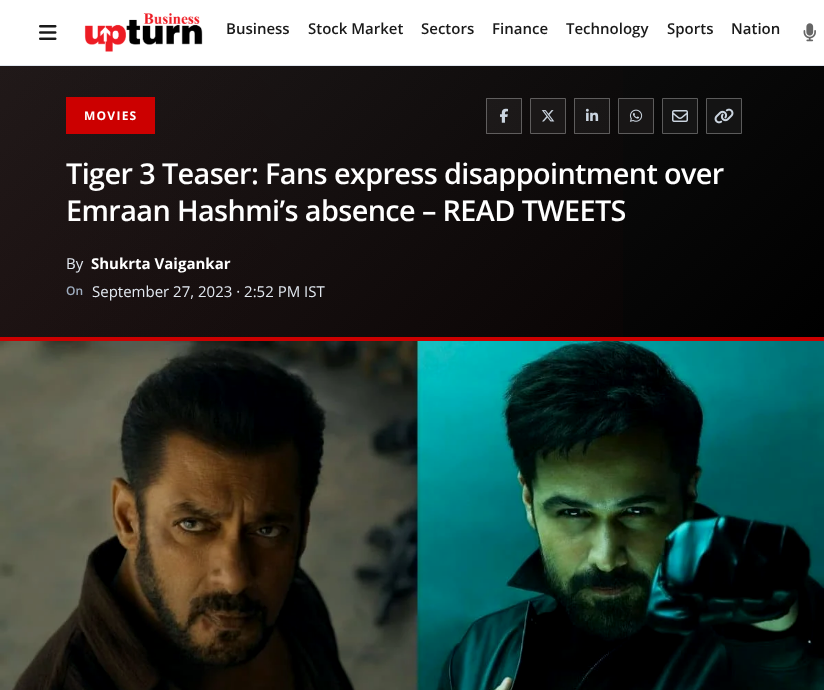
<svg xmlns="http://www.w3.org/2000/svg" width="824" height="690">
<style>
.a{font:600 15px Open Sans;fill:#1a1a1a}
.b{font:bold 12px Open Sans;letter-spacing:1.25px;fill:#fff}
.c{font:600 28.8px Open Sans;letter-spacing:-0.6px;fill:#fff}
.d{font:15px Open Sans;fill:#e2e8f0}
.e{font:bold 15px Open Sans;fill:#fff}
.f{font:600 12px Open Sans;fill:#a0aec0}
</style>
<defs>
<linearGradient id="g1" gradientUnits="userSpaceOnUse" x1="138" y1="-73" x2="686" y2="475"><stop offset="0" stop-color="#1a1a1a"/><stop offset="1" stop-color="#000"/></linearGradient>
<linearGradient id="g2" gradientUnits="userSpaceOnUse" x1="138" y1="475" x2="686" y2="-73"><stop offset="0" stop-color="#c00" stop-opacity="0.05"/><stop offset="1" stop-color="#c00" stop-opacity="0"/></linearGradient>
</defs>
<rect width="100%" height="100%" fill="#fff"/>
<path fill="#e2e8f0" d="M0 65h824v1H0z"/>
<image href="1.png" x="39" y="25" width="18" height="15"/>
<image href="2.png" x="84" y="13" width="119" height="39"/>
<image href="3.png" x="803" y="23" width="13" height="19"/>
<path fill="url(#g1)" d="M0 66h824v271H0z"/>
<path fill="#c00" d="M0 337h824v4H0z"/>
<path fill="#c00" d="M66 97h89v37H66z"/>
<path fill="url(#g2)" d="M0 66h623v271H0z"/>
<path fill="#ffffff0d" d="M486 98h36v36H486z"/>
<path fill="none" stroke="#ffffff4d" d="M486.5 98.5h35v35H486.5z"/>
<image href="4.png" x="500" y="108" width="8" height="15"/>
<path fill="#1b1818" stroke="#5f5d5d" d="M530.5 98.5h35v35H530.5z"/>
<image href="5.png" x="541" y="110" width="14" height="12"/>
<path fill="#ffffff0d" d="M574 98h36v36H574z"/>
<path fill="none" stroke="#ffffff4d" d="M574.5 98.5h35v35H574.5z"/>
<image href="6.png" x="585" y="108" width="14" height="13"/>
<path fill="#181616" stroke="#5d5c5c" d="M618.5 98.5h35v35H618.5z"/>
<image href="7.png" x="629" y="109" width="14" height="13"/>
<path fill="#151515" stroke="#5b5b5b" d="M662.5 98.5h35v35H662.5z"/>
<image href="8.png" x="672" y="110" width="16" height="12"/>
<path fill="#141414" stroke="#5b5b5b" d="M706.5 98.5h35v35H706.5z"/>
<image href="9.png" x="714" y="108" width="20" height="16"/>
<image href="10.png" x="0" y="341" width="824" height="349"/>
<text class="a" x="226" y="34">Business</text>
<text class="a" x="308" y="34">Stock Market</text>
<text class="a" x="421" y="34">Sectors</text>
<text class="a" x="492" y="34">Finance</text>
<text class="a" x="566" y="34">Technology</text>
<text class="a" x="667" y="34">Sports</text>
<text class="a" x="731" y="34">Nation</text>
<text class="b" x="84" y="120">MOVIES</text>
<text class="c" x="66" y="184">Tiger 3 Teaser: Fans express disappointment over</text>
<text class="c" x="66" y="221">Emraan Hashmi’s absence – READ TWEETS</text>
<text class="d" x="66" y="269">By</text>
<text class="e" x="91" y="269">Shukrta Vaigankar</text>
<text class="f" x="66" y="295">On</text>
<text class="d" x="92" y="297">September 27, 2023 · 2:52 PM IST</text>
</svg>
